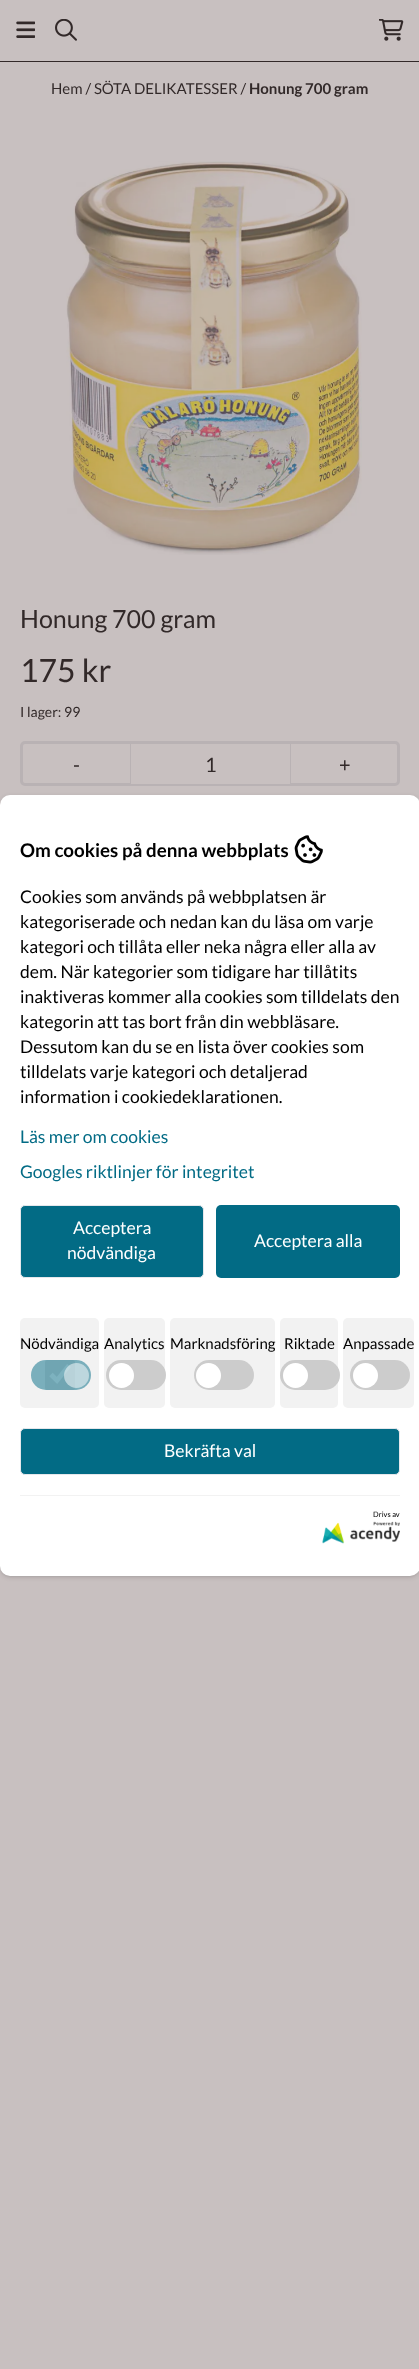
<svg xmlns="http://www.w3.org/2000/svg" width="419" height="2369">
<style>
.a{font:15px Lato;fill:#322929}
.b{font:bold 15px Lato;fill:#322929}
.c{font:25px Lato;fill:#322929}
.d{font:32px Lato;fill:#322929}
.e{font:14px Lato;fill:#322929}
.f{font:20px Lato;fill:#322929}
.g{font:bold 18.75px Lato;fill:#000}
.h{font:17.5px Lato;fill:#000}
.i{font:17.5px Lato;fill:#026b85}
.j{font:17.5px Lato;fill:#fff}
.k{font:15px Lato;fill:#000}
.l{font:7.5px Lato;fill:#000}
</style>
<rect width="100%" height="100%" fill="#c8c0c0"/>
<path fill="#322929" d="M0 61h419v1H0z"/>
<image href="1.png" x="16" y="21" width="19" height="17"/>
<image href="2.png" x="55" y="19" width="22" height="22"/>
<image href="3.png" x="379" y="19" width="25" height="22"/>
<image href="4.png" x="66" y="161" width="296" height="394"/>
<rect fill="none" stroke="#b9b2b4" stroke-width="3" x="21.5" y="742.5" width="377" height="42" rx="3.5"/>
<path fill="#c8c0c0" d="M131 783h159v1H131z"/>
<path fill="#b9b2b4" d="M130 744h1v40H130z"/>
<path fill="#b9b2b4" d="M290 744h1v40H290z"/>
<rect fill="#0000001a" filter="blur(1px)" x="1" y="798" width="418" height="778" rx="9"/>
<rect fill="#0000001a" filter="blur(2px)" y="796" width="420" height="782" rx="10"/>
<rect fill="#fff" y="795" width="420" height="781" rx="10"/>
<image href="5.png" x="294" y="835" width="29" height="29"/>
<rect fill="#026b85" stroke="#e5e7eb" x="20.5" y="1205.5" width="183" height="72" rx="4.5"/>
<rect fill="#026b85" x="216" y="1205" width="184" height="73" rx="5"/>
<rect fill="#f2f2f2" x="20" y="1318" width="79" height="90" rx="5"/>
<rect fill="#dfdfdf" x="45" y="1360" width="30" height="30" rx="2.5"/>
<path fill="none" stroke="#f9f9f9" stroke-width="4.8" d="M51 1374.5l6 6l12-15"/>
<rect fill="#026b8580" x="31" y="1360" width="60" height="30" rx="15"/>
<circle fill="#ffffff80" cx="76.5" cy="1375.5" r="12.5"/>
<rect fill="#f2f2f2" x="104" y="1318" width="61" height="90" rx="5"/>
<rect fill="none" stroke="#767676" x="120.5" y="1360.5" width="29" height="29" rx="2"/>
<rect fill="#ccc" x="106" y="1360" width="60" height="30" rx="15"/>
<circle fill="#fff" cx="121.5" cy="1375.5" r="12.5"/>
<rect fill="#f2f2f2" x="170" y="1318" width="105" height="90" rx="5"/>
<rect fill="none" stroke="#767676" x="208.5" y="1360.5" width="29" height="29" rx="2"/>
<rect fill="#ccc" x="194" y="1360" width="60" height="30" rx="15"/>
<circle fill="#fff" cx="208.5" cy="1375.5" r="12.5"/>
<rect fill="#f2f2f2" x="280" y="1318" width="58" height="90" rx="5"/>
<rect fill="none" stroke="#767676" x="294.5" y="1360.5" width="29" height="29" rx="2"/>
<rect fill="#ccc" x="280" y="1360" width="60" height="30" rx="15"/>
<circle fill="#fff" cx="295.5" cy="1375.5" r="12.5"/>
<rect fill="#f2f2f2" x="343" y="1318" width="71" height="90" rx="5"/>
<rect fill="none" stroke="#767676" x="364.5" y="1360.5" width="29" height="29" rx="2"/>
<rect fill="#ccc" x="350" y="1360" width="60" height="30" rx="15"/>
<circle fill="#fff" cx="365.5" cy="1375.5" r="12.5"/>
<rect fill="#026b85" stroke="#e5e7eb" x="20.5" y="1428.5" width="379" height="46" rx="4.5"/>
<path fill="#f2f2f2" d="M20 1495h380v1H20z"/>
<image href="6.png" x="322" y="1521" width="78" height="23"/>
<text class="a" x="51" y="94">Hem / SÖTA DELIKATESSER /</text>
<text class="b" x="249" y="94">Honung 700 gram</text>
<text class="c" x="20" y="628">Honung 700 gram</text>
<text class="d" x="20" y="682">175 kr</text>
<text class="e" x="20" y="717">I lager: 99</text>
<text class="f" x="73" y="772">-</text>
<text class="f" x="205" y="772">1</text>
<text class="f" x="339" y="772">+</text>
<text class="g" x="20" y="857">Om cookies på denna webbplats</text>
<text class="h" x="20" y="903">Cookies som används på webbplatsen är</text>
<text class="h" x="20" y="928">kategoriserade och nedan kan du läsa om varje</text>
<text class="h" x="20" y="953">kategori och tillåta eller neka några eller alla av</text>
<text class="h" x="20" y="978">dem. När kategorier som tidigare har tillåtits</text>
<text class="h" x="20" y="1003">inaktiveras kommer alla cookies som tilldelats den</text>
<text class="h" x="20" y="1028">kategorin att tas bort från din webbläsare.</text>
<text class="h" x="20" y="1053">Dessutom kan du se en lista över cookies som</text>
<text class="h" x="20" y="1078">tilldelats varje kategori och detaljerad</text>
<text class="h" x="20" y="1103">information i cookiedeklarationen.</text>
<text class="i" x="20" y="1143">Läs mer om cookies</text>
<text class="i" x="20" y="1178">Googles riktlinjer för integritet</text>
<text class="j" x="73" y="1234">Acceptera</text>
<text class="j" x="67" y="1259">nödvändiga</text>
<text class="j" x="254" y="1247">Acceptera alla</text>
<text class="k" x="20" y="1349">Nödvändiga</text>
<text class="k" x="104" y="1349">Analytics</text>
<text class="k" x="170" y="1349">Marknadsföring</text>
<text class="k" x="284" y="1349">Riktade</text>
<text class="k" x="343" y="1349">Anpassade</text>
<text class="j" x="164" y="1457">Bekräfta val</text>
<text class="l" x="373" y="1517">Drivs av</text>
</svg>
